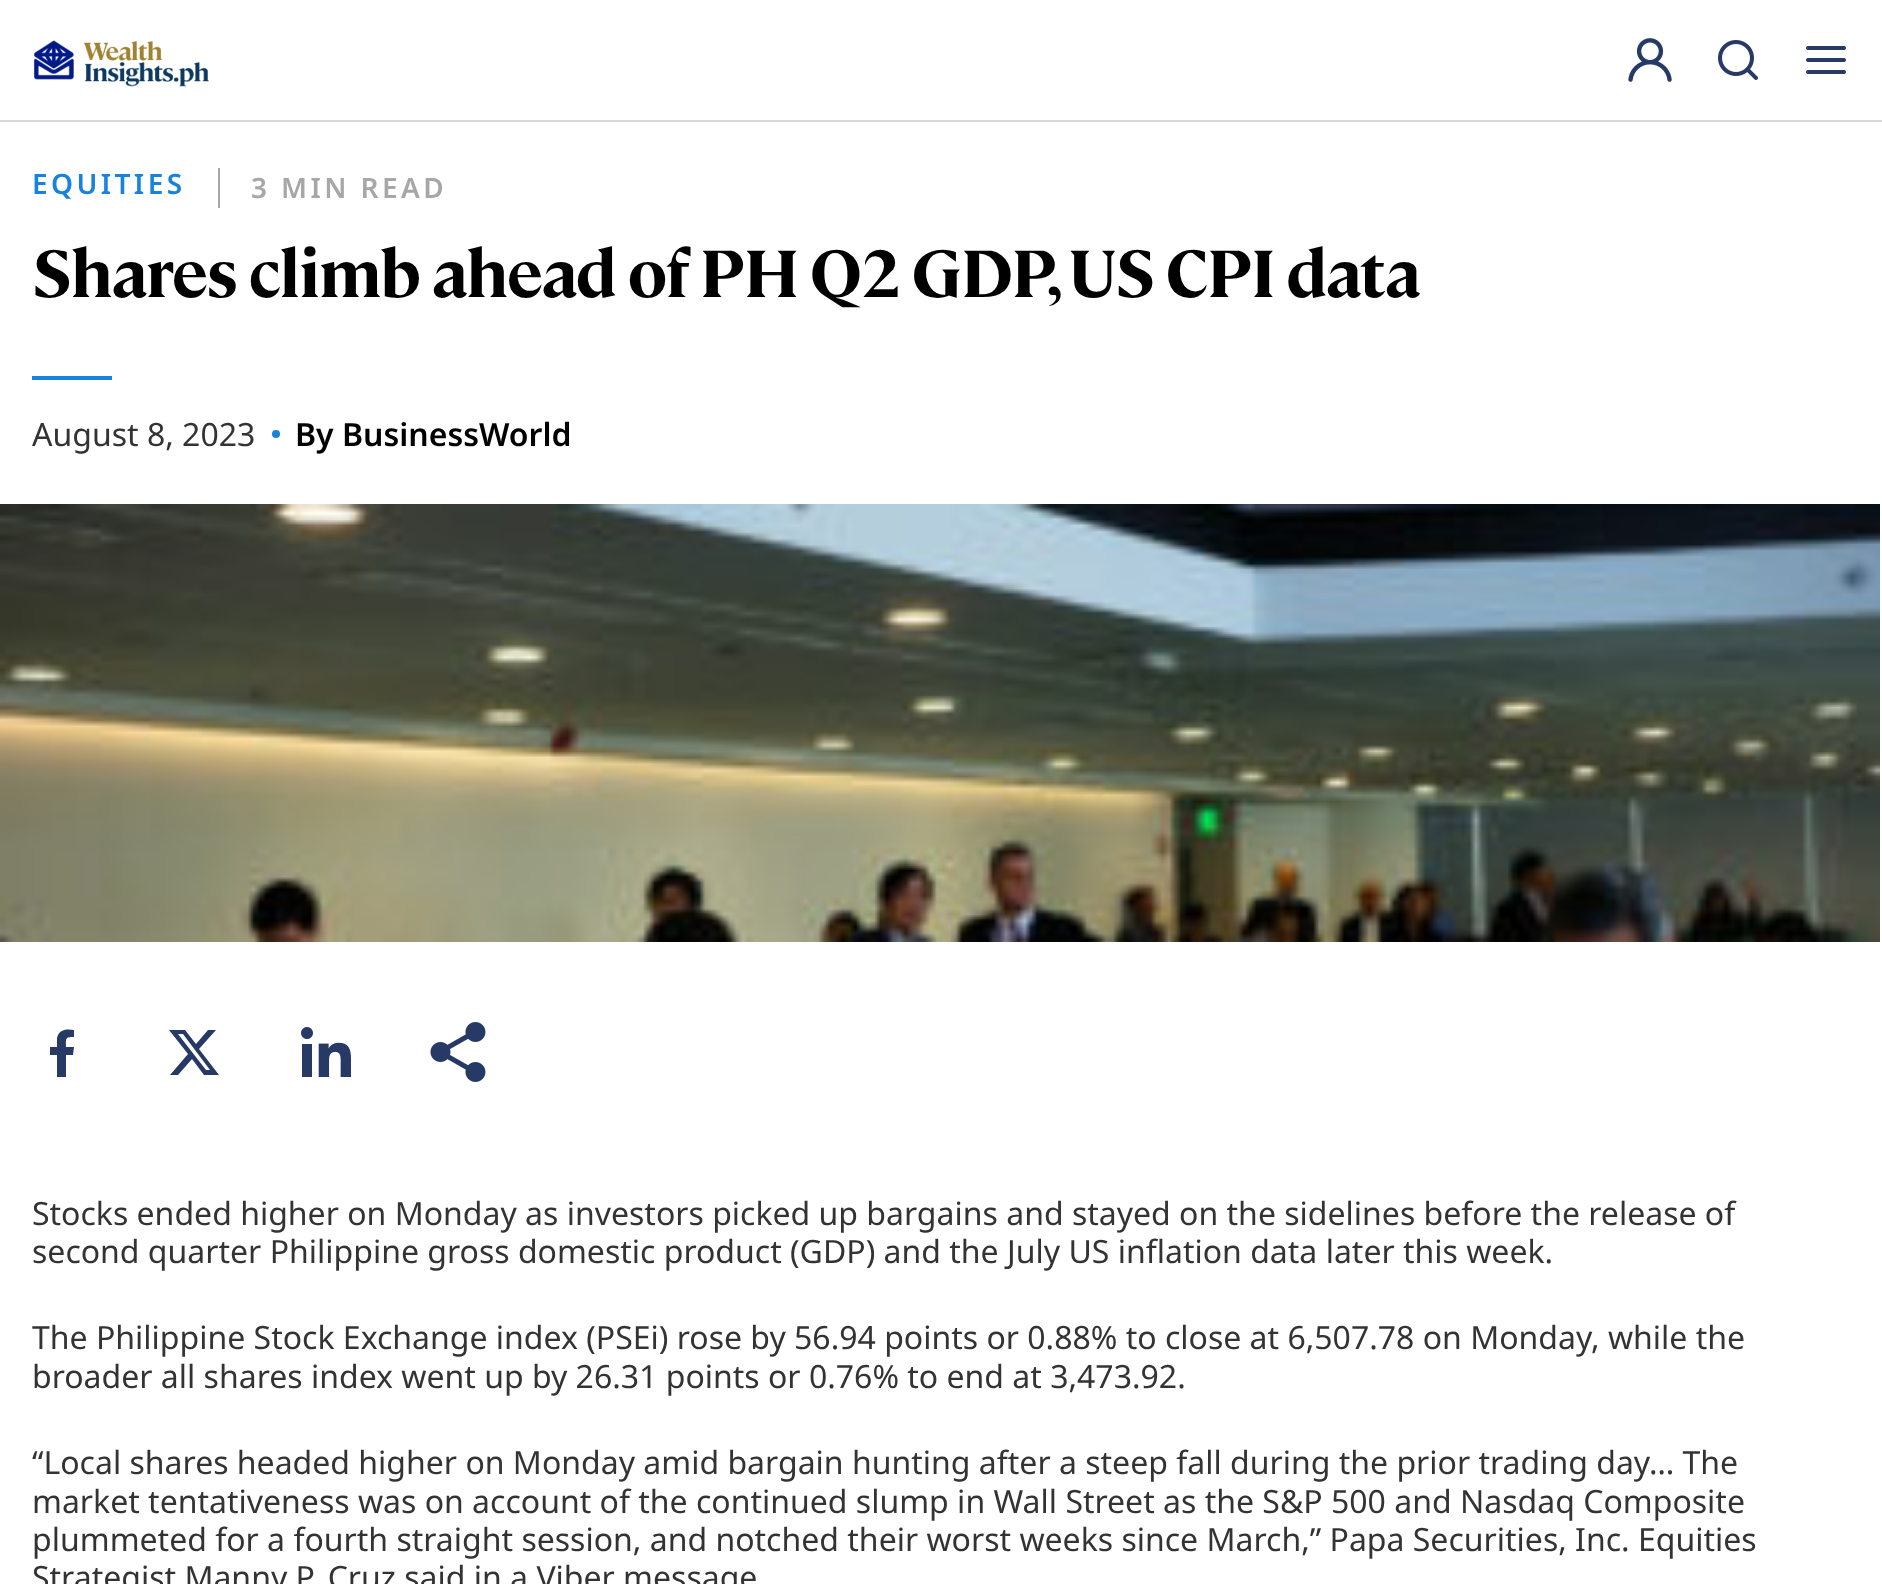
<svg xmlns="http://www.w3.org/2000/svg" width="1882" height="1584">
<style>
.a{font:600 28px Noto Sans;letter-spacing:3.4px;fill:#1783df}
.b{font:600 28px Noto Sans;letter-spacing:3.4px;fill:#a7a7a7}
.c{font:bold 66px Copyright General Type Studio;letter-spacing:-1.3px;fill:#000}
.d{font:32px Noto Sans;fill:#333}
.e{font:600 32px Noto Sans;fill:#000}
</style>
<rect width="100%" height="100%" fill="#fff"/>
<path fill="#d7d7d7" d="M0 120h1882v2H0z"/>
<image href="1.png" x="34" y="40" width="175" height="47"/>
<image href="2.png" x="1628" y="38" width="44" height="44"/>
<image href="3.png" x="1718" y="40" width="40" height="40"/>
<image href="4.png" x="1806" y="46" width="40" height="28"/>
<path fill="#a7a7a7" d="M218 168h2v40H218z"/>
<path fill="#1783df" d="M32 376h80v4H32z"/>
<circle fill="#1783df" cx="276" cy="434" r="4"/>
<image href="5.png" x="0" y="504" width="1880" height="438"/>
<path fill="#273a66" d="M66 1077v-22h7l1-8h-8c0-9-1-10 8-10v-7c-7-1-15-1-17 8v9h-7v8h7v22z"/>
<path fill="#273a66" fill-rule="evenodd" d="M188 1054l-18 21h8l14-16l12 16h15l-20-26l17-19h-8l-12 14l-11-14h-16zm22 16h-4l-28-36h5z"/>
<image href="6.png" x="301" y="1027" width="50" height="50"/>
<image href="7.png" x="430" y="1022" width="56" height="60"/>
<text class="a" x="32" y="194">EQUITIES</text>
<text class="b" x="251" y="198">3 MIN READ</text>
<text class="c" x="32" y="297">Shares climb ahead of PH Q2 GDP, US CPI data</text>
<text class="d" x="32" y="446">August 8, 2023</text>
<text class="e" x="295" y="446">By BusinessWorld</text>
<text class="d" x="32" y="1225">Stocks ended higher on Monday as investors picked up bargains and stayed on the sidelines before the release of</text>
<text class="d" x="32" y="1263">second quarter Philippine gross domestic product (GDP) and the July US inflation data later this week.</text>
<text class="d" x="32" y="1349">The Philippine Stock Exchange index (PSEi) rose by 56.94 points or 0.88% to close at 6,507.78 on Monday, while the</text>
<text class="d" x="32" y="1388">broader all shares index went up by 26.31 points or 0.76% to end at 3,473.92.</text>
<text class="d" x="32" y="1474">“Local shares headed higher on Monday amid bargain hunting after a steep fall during the prior trading day… The</text>
<text class="d" x="32" y="1513">market tentativeness was on account of the continued slump in Wall Street as the S&amp;P 500 and Nasdaq Composite</text>
<text class="d" x="32" y="1551">plummeted for a fourth straight session, and notched their worst weeks since March,” Papa Securities, Inc. Equities</text>
<text class="d" x="32" y="1589">Strategist Manny P. Cruz said in a Viber message</text>
</svg>
